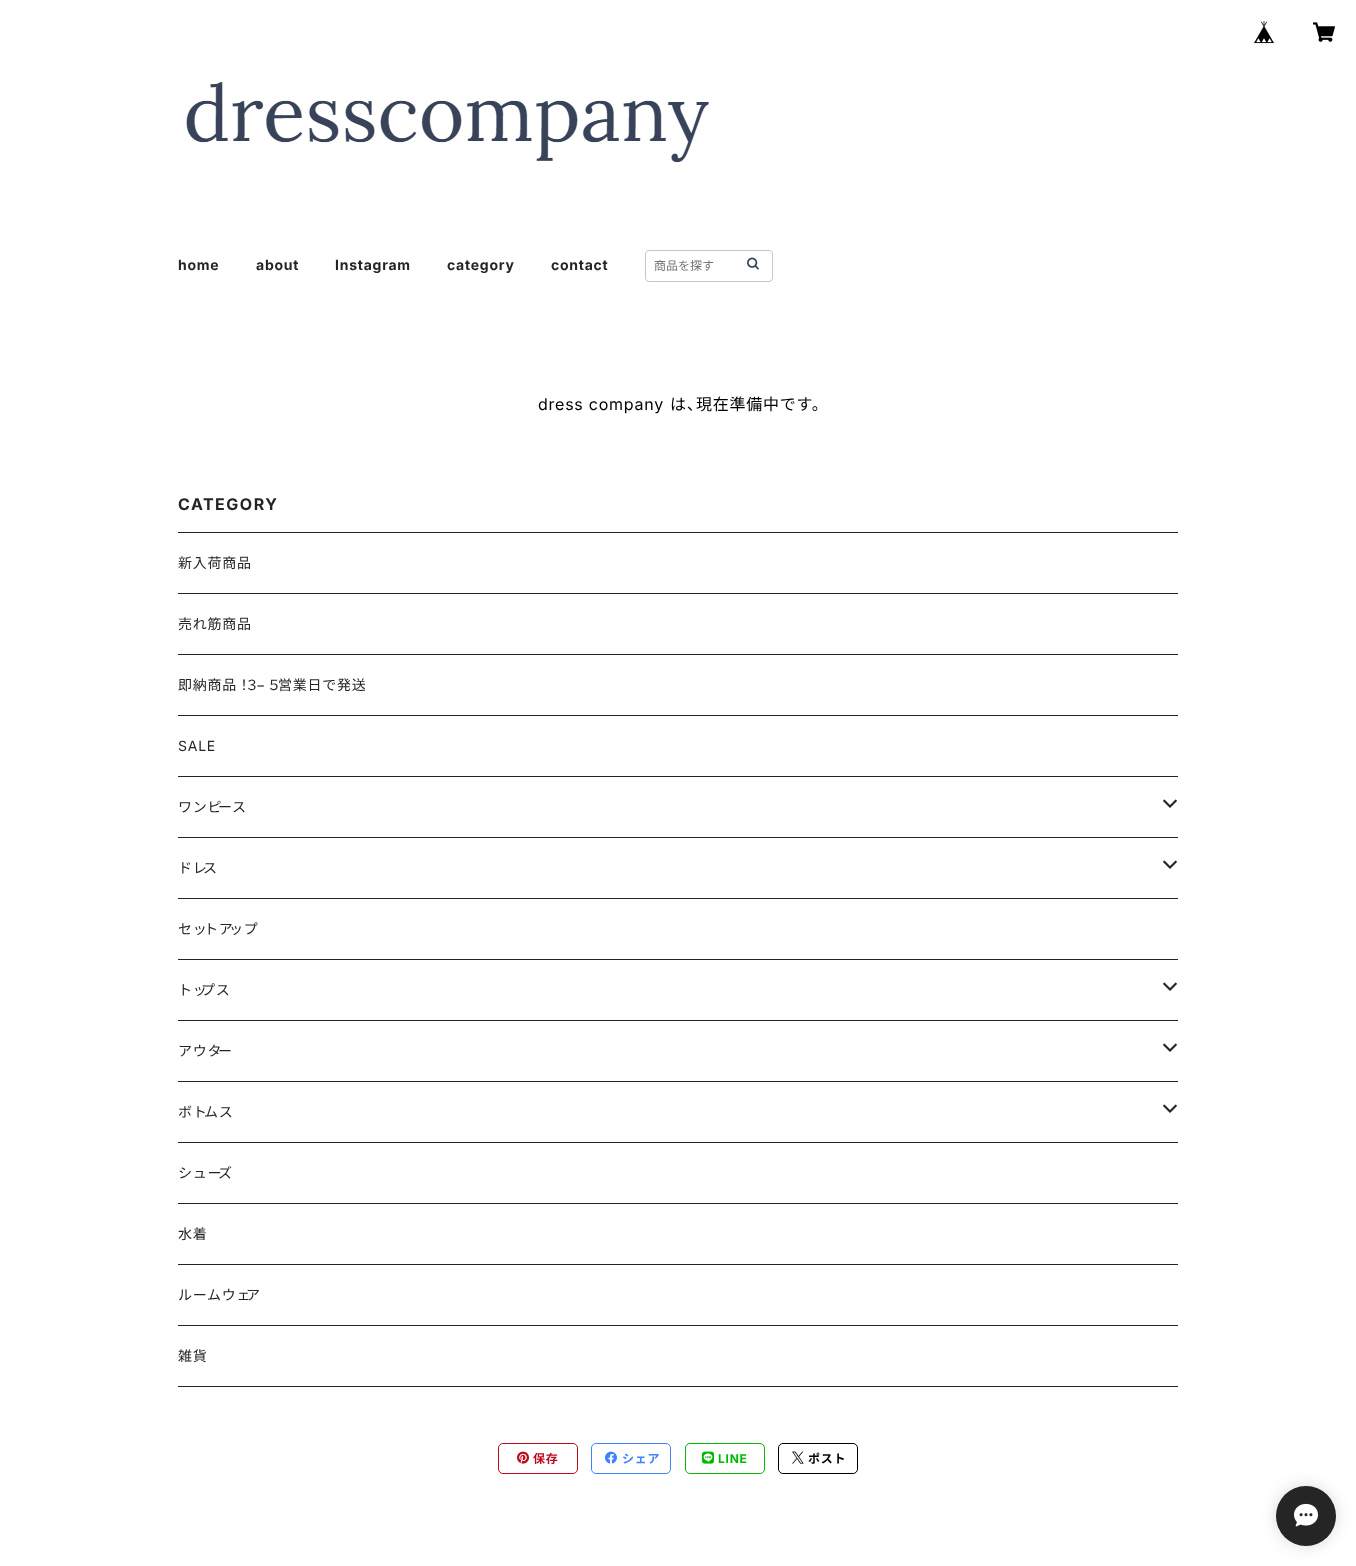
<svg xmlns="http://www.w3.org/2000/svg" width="1356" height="1566">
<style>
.a{font:bold 14px Inter;letter-spacing:0.75px;fill:#252525}
.b{font:12px Noto Sans JP;fill:#757575}
.c{font:16px Inter;letter-spacing:0.75px;fill:#000}
.d{font:16px Noto Sans JP;letter-spacing:0.75px;fill:#000}
.e{font:bold 16px Inter;letter-spacing:1.5px;fill:#252525}
.f{font:14px Noto Sans JP;letter-spacing:0.75px;fill:#252525}
.g{font:14px Inter;letter-spacing:0.75px;fill:#252525}
.h{font:bold 12px Noto Sans JP;letter-spacing:0.75px;fill:#bd091c}
.i{font:bold 12px Noto Sans JP;letter-spacing:0.75px;fill:#4081ff}
.j{font:bold 12px Inter;letter-spacing:0.75px;fill:#00b901}
.k{font:bold 12px Noto Sans JP;letter-spacing:0.75px;fill:#000}
</style>
<rect width="100%" height="100%" fill="#fff"/>
<image href="1.png" x="1254" y="21" width="20" height="23"/>
<image href="2.png" x="1313" y="22" width="22" height="20"/>
<image href="3.png" x="186" y="82" width="523" height="81"/>
<rect fill="none" stroke="#c2c8d2" x="645.5" y="250.5" width="127" height="31" rx="3.5"/>
<image href="4.png" x="747" y="257" width="12" height="13"/>
<path fill="#252525" d="M178 532h1000v1H178z"/>
<path fill="#252525" d="M178 1386h1000v1H178z"/>
<path fill="#252525" d="M178 593h1000v1H178z"/>
<path fill="#252525" d="M178 654h1000v1H178z"/>
<path fill="#252525" d="M178 715h1000v1H178z"/>
<path fill="#252525" d="M178 776h1000v1H178z"/>
<image href="5.png" x="1163" y="799" width="14" height="9"/>
<path fill="#252525" d="M178 837h1000v1H178z"/>
<image href="5.png" x="1163" y="860" width="14" height="9"/>
<path fill="#252525" d="M178 898h1000v1H178z"/>
<path fill="#252525" d="M178 959h1000v1H178z"/>
<image href="5.png" x="1163" y="982" width="14" height="9"/>
<path fill="#252525" d="M178 1020h1000v1H178z"/>
<image href="5.png" x="1163" y="1043" width="14" height="9"/>
<path fill="#252525" d="M178 1081h1000v1H178z"/>
<image href="5.png" x="1163" y="1104" width="14" height="9"/>
<path fill="#252525" d="M178 1142h1000v1H178z"/>
<path fill="#252525" d="M178 1203h1000v1H178z"/>
<path fill="#252525" d="M178 1264h1000v1H178z"/>
<path fill="#252525" d="M178 1325h1000v1H178z"/>
<rect fill="none" stroke="#bd091c" x="498.5" y="1443.5" width="79" height="30" rx="4.5"/>
<image href="6.png" x="517" y="1451" width="12" height="13"/>
<rect fill="none" stroke="#4081ff" x="591.5" y="1443.5" width="79" height="30" rx="4.5"/>
<image href="7.png" x="605" y="1451" width="12" height="13"/>
<rect fill="none" stroke="#00b901" x="685.5" y="1443.5" width="79" height="30" rx="4.5"/>
<image href="8.png" x="702" y="1451" width="12" height="13"/>
<rect fill="none" stroke="#000" x="778.5" y="1443.5" width="79" height="30" rx="4.5"/>
<image href="9.png" x="792" y="1451" width="12" height="13"/>
<rect fill="#33425833" filter="blur(7.5px)" x="1276" y="1486" width="60" height="60" rx="30"/>
<circle fill="#252525" cx="1306" cy="1516" r="30"/>
<image href="10.png" x="1294" y="1503" width="24" height="24"/>
<text class="a" x="178" y="270">home</text>
<text class="a" x="256" y="270">about</text>
<text class="a" x="335" y="270">Instagram</text>
<text class="a" x="447" y="270">category</text>
<text class="a" x="551" y="270">contact</text>
<text class="b" x="654" y="270">商品を探す</text>
<text class="c" x="538" y="410">dress company</text>
<text class="d" x="670" y="410">は、</text>
<text class="d" x="696" y="410">現在準備中です。</text>
<text class="e" x="178" y="510">CATEGORY</text>
<text class="f" x="178" y="568">新入荷商品</text>
<text class="f" x="178" y="629">売れ筋商品</text>
<text class="f" x="178" y="690">即納商品！</text>
<text class="f" x="245" y="690">３</text>
<text class="g" x="256" y="690">−</text>
<text class="f" x="267" y="690">５</text>
<text class="f" x="278" y="690">営業日で発送</text>
<text class="g" x="178" y="751">SALE</text>
<text class="f" x="178" y="812">ワンピ</text>
<text class="f" x="218" y="812">ース</text>
<text class="f" x="178" y="873">ドレ</text>
<text class="f" x="203" y="873">ス</text>
<text class="f" x="178" y="934">セッ</text>
<text class="f" x="204" y="934">トア</text>
<text class="f" x="229" y="934">ップ</text>
<text class="f" x="178" y="995">トッ</text>
<text class="f" x="201" y="995">プス</text>
<text class="f" x="178" y="1056">アウタ</text>
<text class="f" x="218" y="1056">ー</text>
<text class="f" x="178" y="1117">ボト</text>
<text class="f" x="204" y="1117">ムス</text>
<text class="f" x="178" y="1178">シュー</text>
<text class="f" x="218" y="1178">ズ</text>
<text class="f" x="178" y="1239">水着</text>
<text class="f" x="178" y="1300">ルームウェ</text>
<text class="f" x="246" y="1300">ア</text>
<text class="f" x="178" y="1361">雑貨</text>
<text class="h" x="533" y="1463">保存</text>
<text class="i" x="622" y="1463">シェア</text>
<text class="j" x="718" y="1463">LINE</text>
<text class="k" x="808" y="1463">ポスト</text>
</svg>
